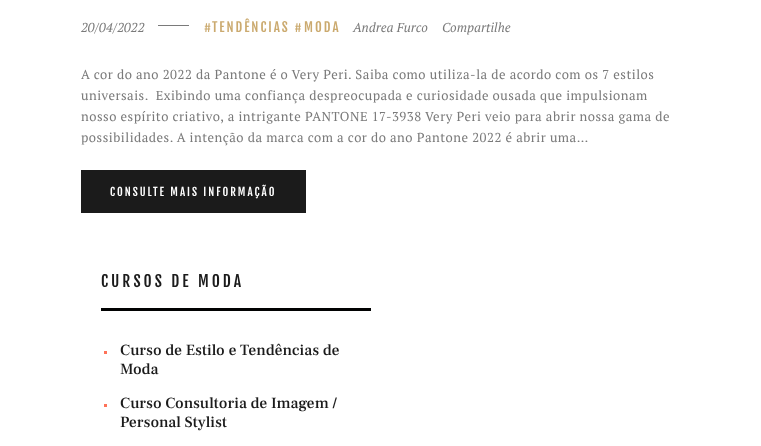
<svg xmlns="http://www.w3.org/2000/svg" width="761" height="446">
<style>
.a{font:italic 13px PT Serif;fill:#7a7a7a}
.b{font:13px Fjalla One;letter-spacing:2px;fill:#cbaa6f}
.c{font:13px PT Serif;letter-spacing:0.5px;fill:#7a7a7a}
.d{font:11px Fjalla One;letter-spacing:2px;fill:#fff}
.e{font:15.6px Fjalla One;letter-spacing:3px;fill:#1b1b1b}
.f{font:500 15.6px Frank Ruhl Libre;fill:#1b1b1b}
</style>
<rect width="100%" height="100%" fill="#fff"/>
<path fill="#7a7a7a" d="M158 25h31v1H158z"/>
<path fill="#1b1b1b" d="M81 170h225v43H81z"/>
<path fill="#010202" d="M101 308h270v3H101z"/>
<path fill="#fe7259" d="M104 351h3v3H104z"/>
<path fill="#fe7259" d="M104 404h3v3H104z"/>
<text class="a" x="81" y="32">20/04/2022</text>
<text class="b" x="204" y="32">#</text>
<text class="b" x="212" y="32">TENDÊNCIAS #</text>
<text class="b" x="304" y="32">MODA</text>
<text class="a" x="353" y="32">Andrea Furco</text>
<text class="a" x="442" y="32">Compartilhe</text>
<text class="c" x="81" y="79">A cor do ano 2022 da Pantone é o Very Peri. Saiba como utiliza-la de acordo com os 7 estilos</text>
<text class="c" xml:space="preserve" x="81" y="100">universais.  Exibindo uma confiança despreocupada e curiosidade ousada que impulsionam</text>
<text class="c" x="81" y="121">nosso espírito criativo, a intrigante PANTONE 17-3938 Very Peri veio para abrir nossa gama de</text>
<text class="c" x="81" y="142">possibilidades. A intenção da marca com a cor do ano Pantone 2022 é abrir uma…</text>
<text class="d" x="110" y="196">CONSULTE MAIS INFORMAÇÃO</text>
<text class="e" x="101" y="287">CURSOS DE MODA</text>
<text class="f" x="120" y="355">Curso de Estilo e Tendências de</text>
<text class="f" x="120" y="374">Moda</text>
<text class="f" x="120" y="408">Curso Consultoria de Imagem /</text>
<text class="f" x="120" y="427">Personal Stylist</text>
</svg>
